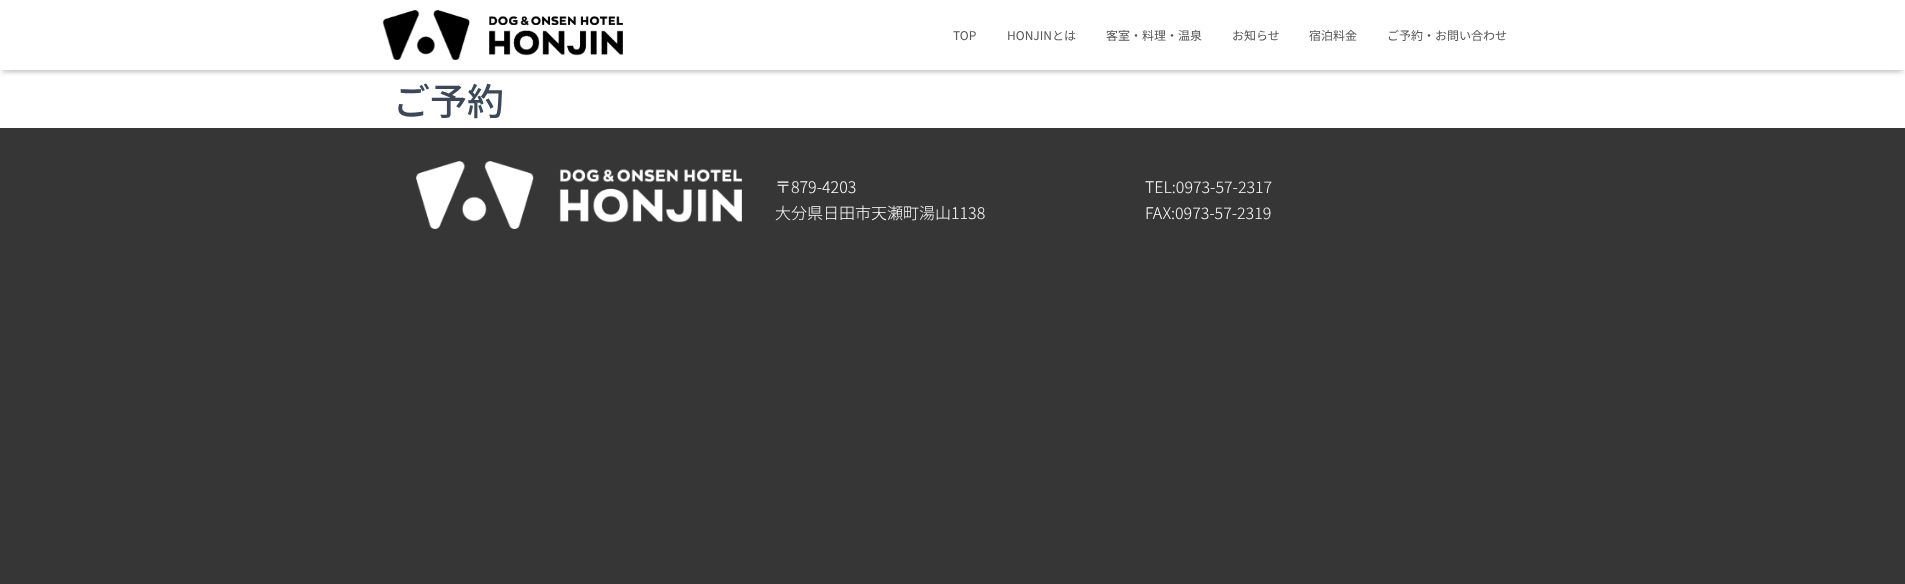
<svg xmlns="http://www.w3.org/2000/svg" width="1905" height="584">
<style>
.a{font:12px Noto Sans JP;fill:#555}
.b{font:500 37px Noto Sans JP;fill:#3c4858}
.c{font:300 16px Noto Sans JP;fill:#fff}
</style>
<defs>
<clipPath id="clip1"><path d="M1 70h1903v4H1z"/></clipPath>
<clipPath id="clip2"><path d="M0 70h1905v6H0z"/></clipPath>
<clipPath id="clip3"><path d="M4 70h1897v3H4z"/></clipPath>
</defs>
<rect width="100%" height="100%" fill="#fff"/>
<g clip-path="url(#clip1)">
<path fill="#0000001a" filter="blur(2.5px)" d="M2 6h1901v66H2z"/>
</g>
<g clip-path="url(#clip2)">
<path fill="#0000001f" filter="blur(5px)" d="M0 1h1905v70H0z"/>
</g>
<g clip-path="url(#clip3)">
<path fill="#0000006b" filter="blur(5px)" d="M6 7h1893v58H6z"/>
</g>
<image href="1.png" x="382" y="10" width="241" height="50"/>
<path fill="#363636" d="M0 128h1905v456H0z"/>
<image href="2.png" x="416" y="161" width="326" height="68"/>
<text class="a" x="953" y="40">TOP</text>
<text class="a" x="1007" y="40">HONJINとは</text>
<text class="a" x="1106" y="40">客室・料理・温泉</text>
<text class="a" x="1232" y="40">お知らせ</text>
<text class="a" x="1309" y="40">宿泊料金</text>
<text class="a" x="1387" y="40">ご予約・お問い合わせ</text>
<text class="b" x="393" y="115">ご予約</text>
<text class="c" x="775" y="193">〒879-4203</text>
<text class="c" x="775" y="219">大分県日田市天瀬町湯山1138</text>
<text class="c" x="1145" y="193">TEL:0973-57-2317</text>
<text class="c" x="1145" y="219">FAX:0973-57-2319</text>
</svg>
